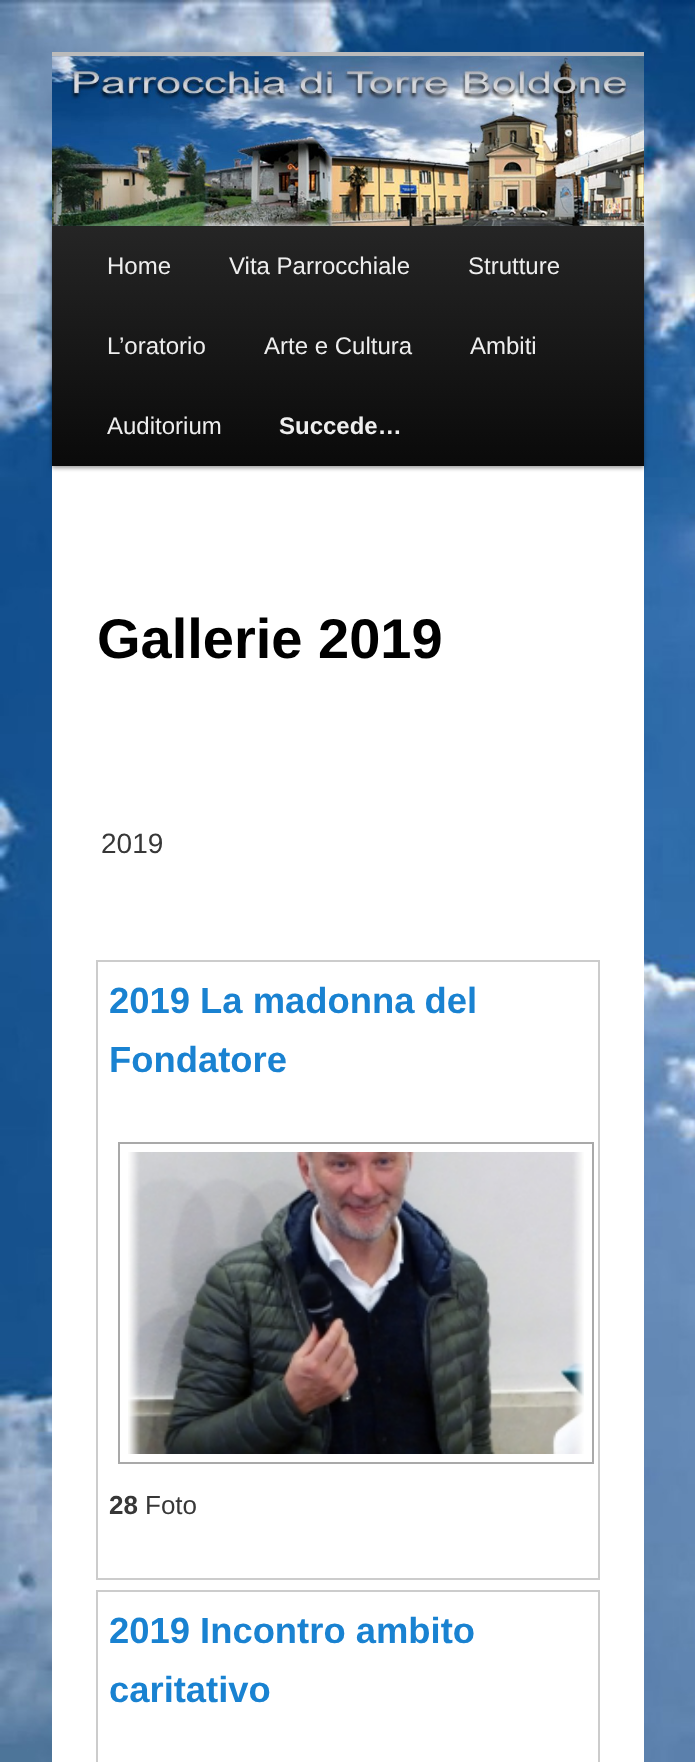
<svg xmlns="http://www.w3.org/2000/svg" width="695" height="1762">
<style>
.a{font:24px Liberation Sans;fill:#eee}
.b{font:bold 24px Liberation Sans;fill:#eee}
.c{font:bold 56px Liberation Sans;fill:#000}
.d{font:28px Liberation Sans;fill:#373737}
.e{font:bold 36.4px Liberation Sans;fill:#1982d1}
.f{font:bold 26px Liberation Sans;fill:#373737}
.g{font:26px Liberation Sans;fill:#373737}
</style>
<defs>
<linearGradient id="g1" gradientUnits="userSpaceOnUse" x1="348" y1="226" x2="348" y2="466"><stop offset="0" stop-color="#252525"/><stop offset="1" stop-color="#0a0a0a"/></linearGradient>
</defs>
<rect width="100%" height="100%" fill="#fff"/>
<image href="1.png" x="0" y="0" width="695" height="1762"/>
<path fill="#fff" d="M52 466h592v1296H52z"/>
<path fill="#bbb" d="M52 52h592v4H52z"/>
<path fill="#00000066" filter="blur(2px)" d="M52 228h592v240H52z"/>
<image href="2.png" x="52" y="56" width="592" height="170"/>
<path fill="url(#g1)" d="M52 226h592v240H52z"/>
<path fill="none" stroke="#ccc" stroke-width="2" d="M97 961h502v618H97z"/>
<path fill="none" stroke="#a9a9a9" stroke-width="2" d="M119 1143h474v320H119z"/>
<image href="3.png" x="128" y="1152" width="456" height="302"/>
<path fill="none" stroke="#ccc" stroke-width="2" d="M97 1591h502v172H97z"/>
<text class="a" x="107" y="274">Home</text>
<text class="a" x="229" y="274">Vita Parrocchiale</text>
<text class="a" x="468" y="274">Strutture</text>
<text class="a" x="107" y="354">L’oratorio</text>
<text class="a" x="264" y="354">Arte e Cultura</text>
<text class="a" x="470" y="354">Ambiti</text>
<text class="a" x="107" y="434">Auditorium</text>
<text class="b" x="279" y="434">Succede…</text>
<text class="c" x="97" y="658">Gallerie 2019</text>
<text class="d" x="101" y="853">2019</text>
<text class="e" x="109" y="1013">2019 La madonna del</text>
<text class="e" x="109" y="1072">Fondatore</text>
<text class="f" x="109" y="1514">28</text>
<text class="g" x="145" y="1514">Foto</text>
<text class="e" x="109" y="1643">2019 Incontro ambito</text>
<text class="e" x="109" y="1702">caritativo</text>
</svg>
